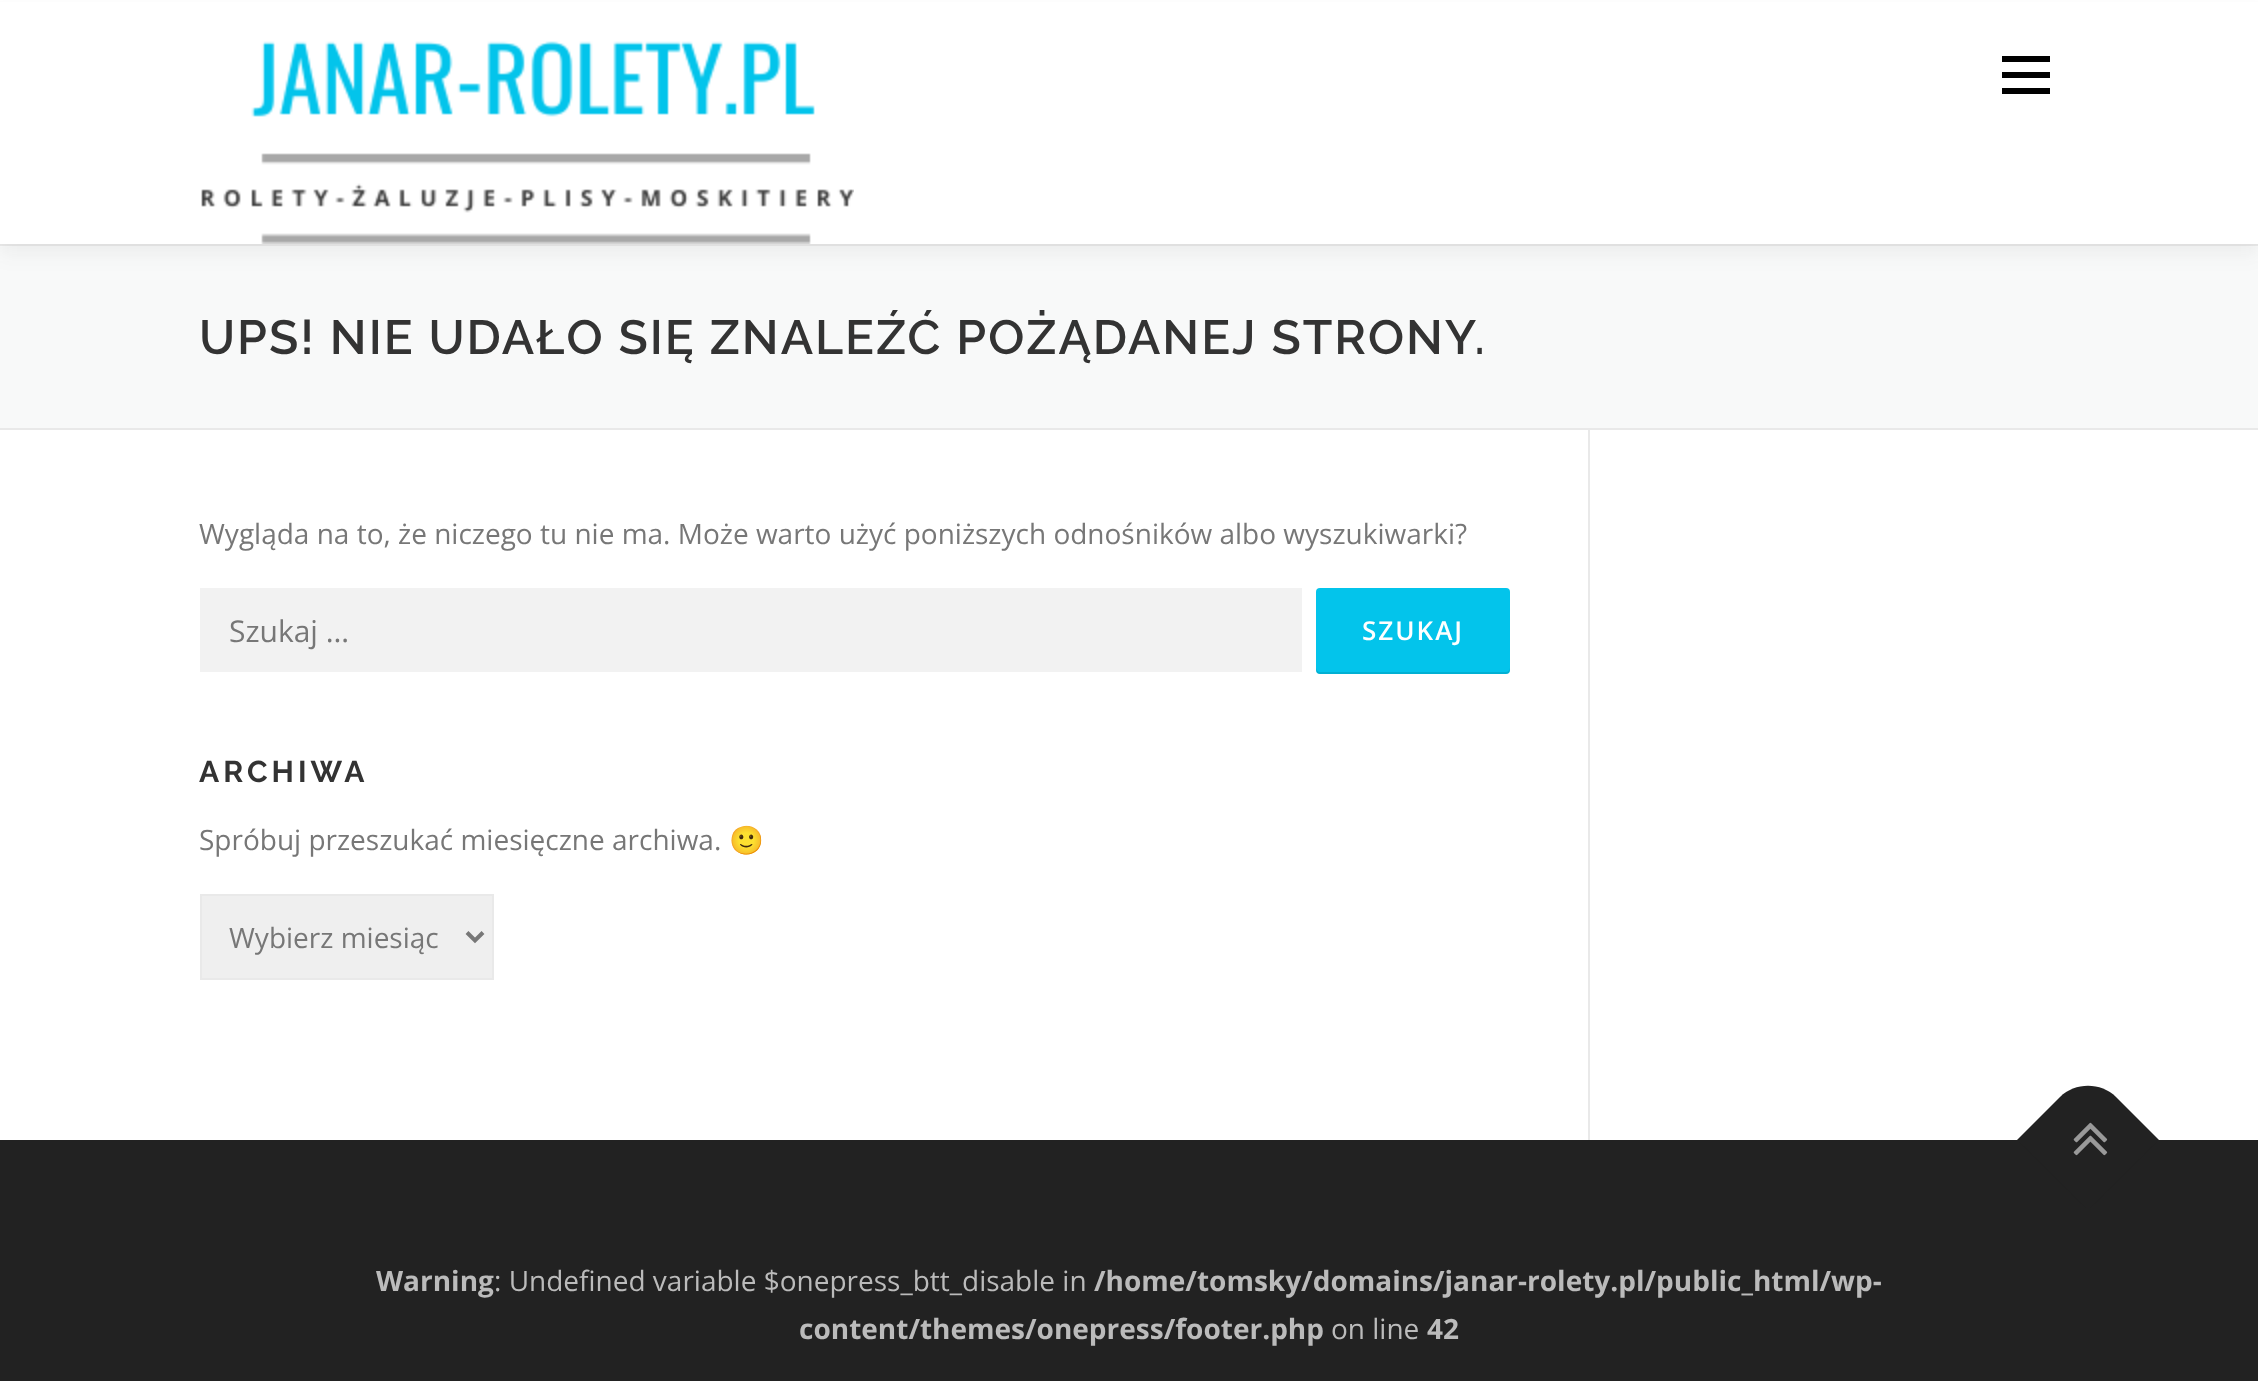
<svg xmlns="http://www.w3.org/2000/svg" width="2258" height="1381">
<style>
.a{font:600 48px Raleway;letter-spacing:2px;fill:#333}
.b{font:28px Open Sans;fill:#777}
.c{font:30px Open Sans;fill:#777}
.d{font:600 26px Open Sans;letter-spacing:2px;fill:#fff}
.e{font:bold 30px Raleway;letter-spacing:4px;fill:#333}
.f{font:28px Noto Color Emoji;fill:#777}
.g{font:bold 28px Open Sans;fill:#bbb}
.h{font:28px Open Sans;fill:#bbb}
</style>
<rect width="100%" height="100%" fill="#fff"/>
<path fill="#f8f9f9" d="M0 246h2258v182H0z"/>
<path fill="#e9e9e9" d="M0 244h2258v2H0z"/>
<path fill="#3232320f" filter="blur(10px)" d="M0 10h2258v244H0z"/>
<path fill="#fff" d="M0 2h2258v242H0z"/>
<image href="1.png" x="201" y="41" width="653" height="203"/>
<path fill="#000" d="M2002 72h48v6H2002z"/>
<path fill="#000" d="M2002 56h48v6H2002z"/>
<path fill="#000" d="M2002 88h48v6H2002z"/>
<path fill="#e9e9e9" d="M0 428h2258v2H0z"/>
<path fill="#e9e9e9" d="M1588 430h2v710H1588z"/>
<path fill="#f2f2f2" d="M200 588h1102v84H200z"/>
<rect fill="#03c4eb" x="1316" y="588" width="194" height="86" rx="4"/>
<path fill="#0000001a" d="M1316 668v2c0 2 2 4 4 4h186c2 0 4-2 4-4v-2c0 2-2 4-4 4h-186c-2 0-4-2-4-4z"/>
<path fill="#efefef" stroke="#e9e9e9" stroke-width="2" d="M201 895h292v84H201z"/>
<path fill="none" stroke="#777" stroke-width="4" d="M467 932.5l8 8l8-8"/>
<path fill="#222" d="M0 1140h2258v241H0z"/>
<path fill="#222" d="M2017 1140l43-43c15-15 41-15 56 0l43 43l-71 70z"/>
<image href="2.png" x="2073" y="1122" width="35" height="34"/>
<text class="a" x="199" y="354">UPS! NIE UDAŁO SIĘ ZNALEŹĆ POŻĄDANEJ STRONY.</text>
<text class="b" x="199" y="544">Wygląda na to, że niczego tu nie ma. Może warto użyć poniższych odnośników albo wyszukiwarki?</text>
<text class="c" x="229" y="642">Szukaj …</text>
<text class="d" x="1362" y="640">SZUKAJ</text>
<text class="e" x="199" y="782">ARCHIWA</text>
<text class="b" x="199" y="850">Spróbuj przeszukać miesięczne archiwa.</text>
<text class="f" x="729" y="850">🙂</text>
<text class="b" x="229" y="948">Wybierz miesiąc</text>
<text class="g" x="376" y="1291">Warning</text>
<text class="h" x="494" y="1291">: Undefined variable $onepress_btt_disable in</text>
<text class="g" x="1094" y="1291">/home/tomsky/domains/janar-rolety.pl/public_html/wp-</text>
<text class="g" x="799" y="1339">content/themes/onepress/footer.php</text>
<text class="h" x="1331" y="1339">on line</text>
<text class="g" x="1427" y="1339">42</text>
</svg>
